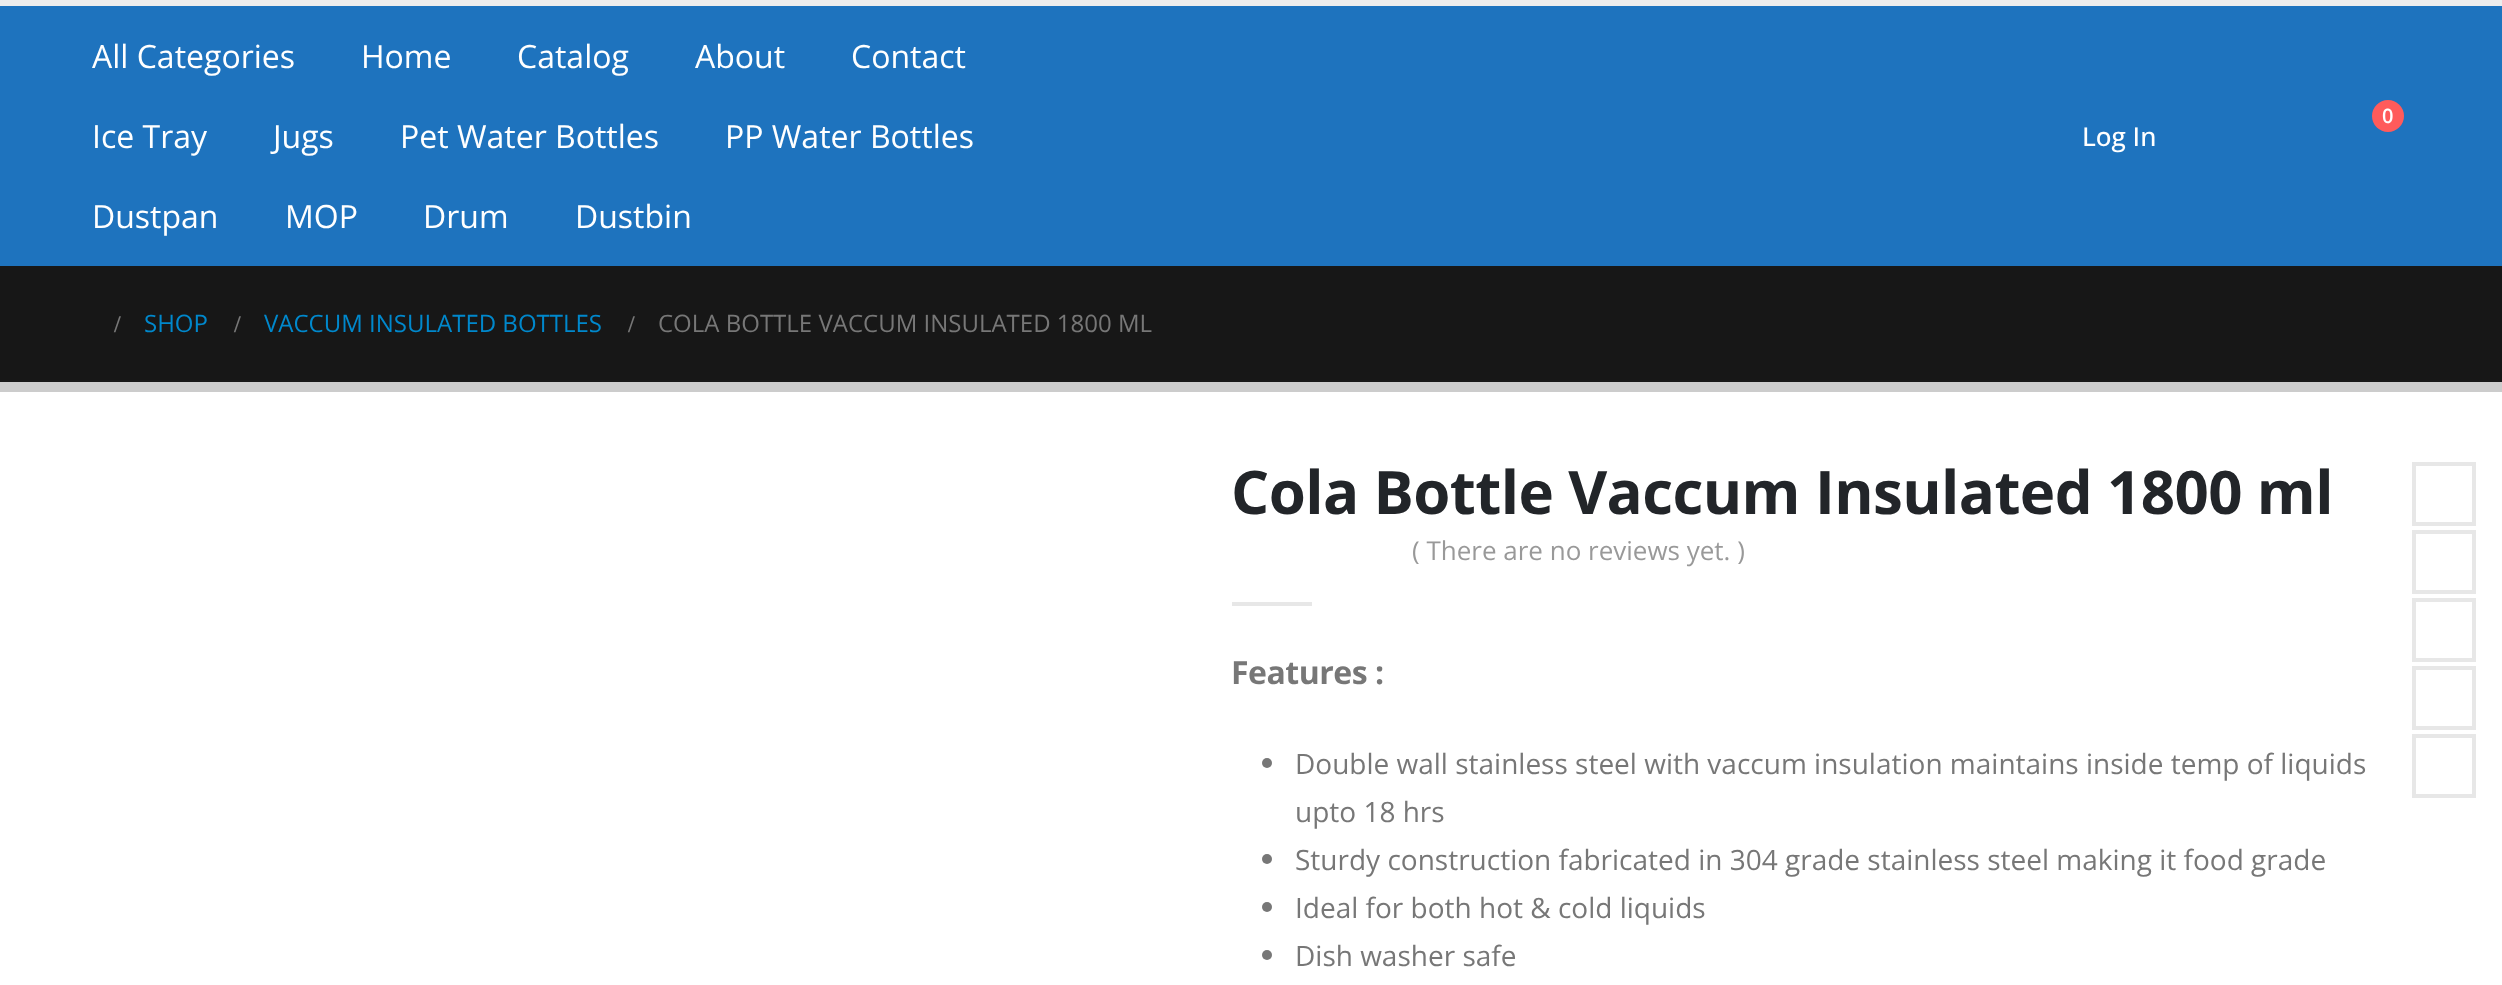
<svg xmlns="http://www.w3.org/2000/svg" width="2502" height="985">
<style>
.a{font:32px Open Sans;fill:#fff}
.b{font:600 20px Open Sans;fill:#fff}
.c{font:500 26px Open Sans;fill:#fff}
.d{font:bold 24px Liberation Serif;fill:#777}
.e{font:24px Open Sans;fill:#08c}
.f{font:24px Open Sans;fill:#777}
.g{font:bold 60px Open Sans;letter-spacing:-0.6px;fill:#222529}
.h{font:26px Open Sans;fill:#999}
.i{font:bold 32px Open Sans;letter-spacing:-0.5px;fill:#777}
.j{font:28px Open Sans;fill:#777}
</style>
<rect width="100%" height="100%" fill="#fff"/>
<path fill="#ededed" d="M0 0h2502v6H0z"/>
<path fill="#1e73be" d="M0 6h2502v260H0z"/>
<circle fill="#ff5b5b" cx="2388" cy="116" r="16"/>
<path fill="#171717" d="M0 266h2502v116H0z"/>
<path fill="#ccc" d="M0 382h2502v10H0z"/>
<path fill="none" stroke="#e7e7e7" stroke-width="4" d="M2414 464h60v60H2414z"/>
<path fill="none" stroke="#e7e7e7" stroke-width="4" d="M2414 532h60v60H2414z"/>
<path fill="none" stroke="#e7e7e7" stroke-width="4" d="M2414 600h60v60H2414z"/>
<path fill="none" stroke="#e7e7e7" stroke-width="4" d="M2414 668h60v60H2414z"/>
<path fill="none" stroke="#e7e7e7" stroke-width="4" d="M2414 736h60v60H2414z"/>
<path fill="#e7e7e7" d="M1232 602h80v4H1232z"/>
<circle fill="#777" cx="1267" cy="763" r="5"/>
<circle fill="#777" cx="1267" cy="859" r="5"/>
<circle fill="#777" cx="1267" cy="907" r="5"/>
<circle fill="#777" cx="1267" cy="955" r="5"/>
<text class="a" x="92" y="68">All Categories</text>
<text class="a" x="361" y="68">Home</text>
<text class="a" x="517" y="68">Catalog</text>
<text class="a" x="695" y="68">About</text>
<text class="a" x="851" y="68">Contact</text>
<text class="a" x="92" y="148">Ice Tray</text>
<text class="a" x="273" y="148">Jugs</text>
<text class="a" x="400" y="148">Pet Water Bottles</text>
<text class="a" x="725" y="148">PP Water Bottles</text>
<text class="a" x="92" y="228">Dustpan</text>
<text class="a" x="285" y="228">MOP</text>
<text class="a" x="423" y="228">Drum</text>
<text class="a" x="575" y="228">Dustbin</text>
<text class="b" x="2382" y="123">0</text>
<text class="c" x="2082" y="146">Log In</text>
<text class="d" x="114" y="332">/</text>
<text class="e" x="144" y="332">SHOP</text>
<text class="d" x="234" y="332">/</text>
<text class="e" x="264" y="332">VACCUM INSULATED BOTTLES</text>
<text class="d" x="628" y="332">/</text>
<text class="f" x="658" y="332">COLA BOTTLE VACCUM INSULATED 1800 ML</text>
<text class="g" x="1231" y="514">Cola Bottle Vaccum Insulated 1800 ml</text>
<text class="h" x="1412" y="560">( There are no reviews yet. )</text>
<text class="i" x="1231" y="684">Features :</text>
<text class="j" x="1295" y="774">Double wall stainless steel with vaccum insulation maintains inside temp of liquids</text>
<text class="j" x="1295" y="822">upto 18 hrs</text>
<text class="j" x="1295" y="870">Sturdy construction fabricated in 304 grade stainless steel making it food grade</text>
<text class="j" x="1295" y="918">Ideal for both hot &amp; cold liquids</text>
<text class="j" x="1295" y="966">Dish washer safe</text>
</svg>
